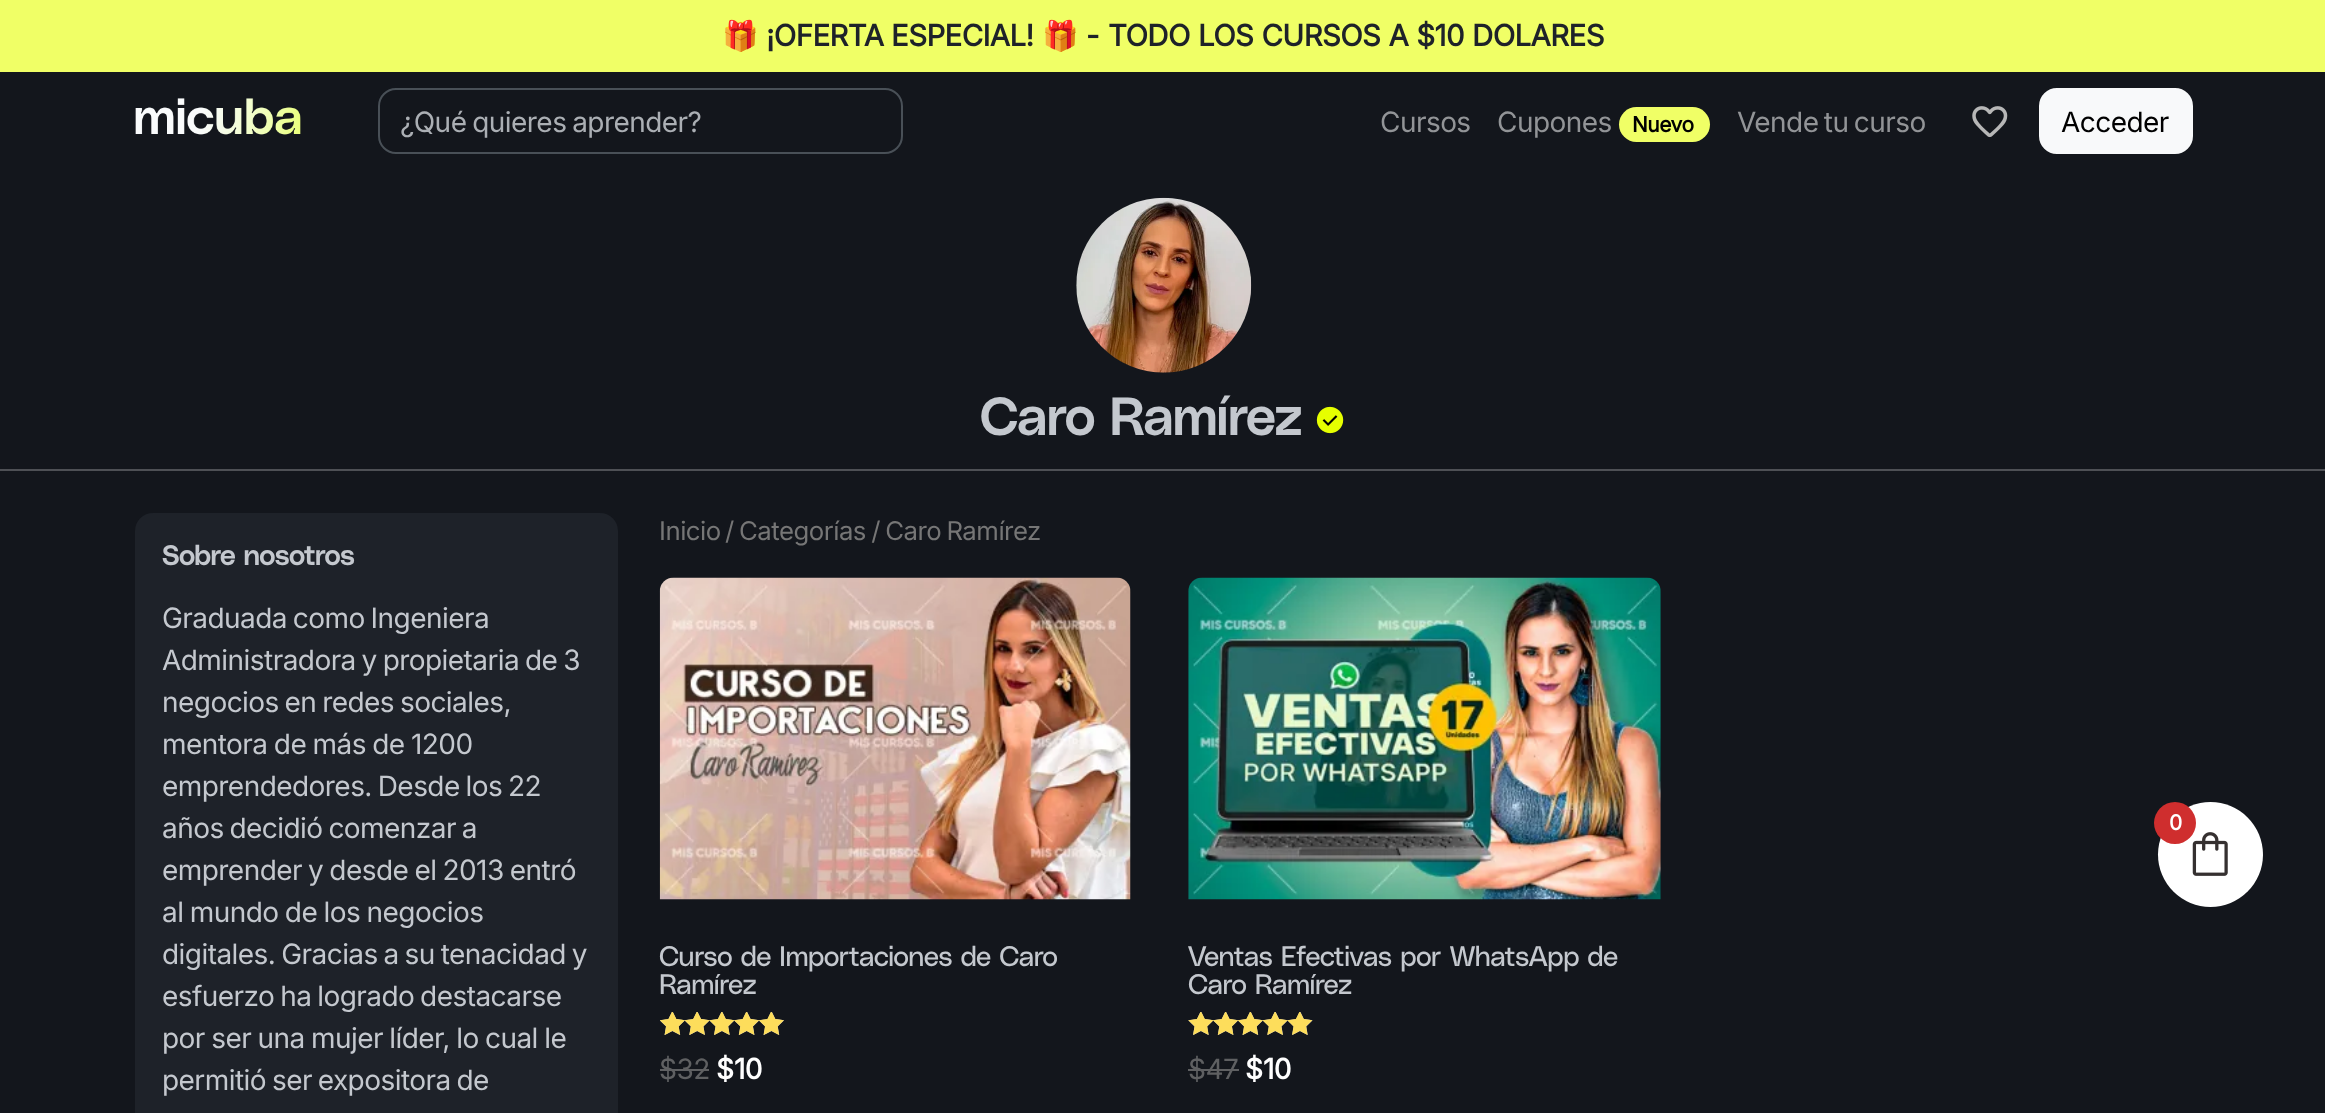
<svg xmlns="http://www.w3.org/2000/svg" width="2325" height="1113">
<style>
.a{font:bold 29.4px Noto Color Emoji;letter-spacing:-0.6px;fill:#1e2229}
.b{font:bold 29.4px Inter;letter-spacing:-0.6px;fill:#1e2229}
.c{font:28px Inter;letter-spacing:-0.55px;fill:#abafb4}
.d{font:28px Inter;letter-spacing:-0.55px;fill:#929497}
.e{font:bold 21px Inter;letter-spacing:-0.5px;fill:#000}
.f{font:28px Inter;letter-spacing:-0.55px;fill:#000}
.g{font:600 53.25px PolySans;letter-spacing:-1px;fill:#c4c8ce}
.h{font:600 28px PolySans;letter-spacing:-0.55px;fill:#c4c8ce}
.i{font:28px Inter;letter-spacing:-0.55px;fill:#c4c8ce}
.j{font:25.75px Inter;letter-spacing:-0.5px;fill:#767676}
.k{font:28px PolySans;letter-spacing:-0.55px;fill:#c4c8ce}
.l{font:28px Inter;letter-spacing:-0.55px;fill:#5f6062}
.m{font:bold 28px Inter;letter-spacing:-0.55px;fill:#fff}
.n{font:bold 21px Inter;letter-spacing:-0.5px;fill:#fff}
</style>
<rect width="100%" height="100%" fill="#13161c"/>
<path fill="#f0ff66" d="M0 0h2325v72H0z"/>
<image href="1.png" x="135" y="98" width="166" height="37"/>
<rect fill="none" stroke="#495057" stroke-width="2" x="379" y="89" width="523" height="64" rx="17"/>
<rect fill="#f0ff66" x="1619" y="107" width="91" height="35" rx="17.5"/>
<image href="2.png" x="1972" y="106" width="36" height="32"/>
<rect fill="#f8f9fa" stroke="#f8f9fa" stroke-width="2" x="2040" y="89" width="152" height="64" rx="17"/>
<image href="3.png" x="1076" y="197" width="176" height="176"/>
<image href="4.png" x="1316" y="406" width="28" height="28"/>
<path fill="#4e5055" d="M0 469h2325v2H0z"/>
<rect fill="#1e2229" x="135" y="513" width="483" height="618" rx="18"/>
<image href="5.png" x="659" y="577" width="472" height="323"/>
<image href="6.png" x="660" y="1012" width="124" height="23"/>
<image href="7.png" x="660" y="1012" width="124" height="23"/>
<path fill="#5f6062" d="M660 1069h49v2H660z"/>
<image href="8.png" x="1188" y="577" width="473" height="323"/>
<image href="9.png" x="1188" y="1012" width="125" height="23"/>
<image href="10.png" x="1188" y="1012" width="125" height="23"/>
<path fill="#5f6062" d="M1188 1069h51v2H1188z"/>
<circle fill="#fff" cx="2210.5" cy="854.5" r="52.5"/>
<image href="11.png" x="2192" y="832" width="36" height="44"/>
<circle fill="#cf2e2e" cx="2175" cy="823" r="21"/>
<text class="a" x="722" y="46">🎁</text>
<text class="b" x="766" y="46">¡OFERTA ESPECIAL!</text>
<text class="a" x="1042" y="46">🎁</text>
<text class="b" x="1086" y="46">-</text>
<text class="b" x="1108" y="46" word-spacing="0.5">TODO LOS CURSOS A $10 DOLARES</text>
<text class="c" x="400" y="132" word-spacing="-1.5">¿Qué quieres aprender?</text>
<text class="d" x="1380" y="132">Cursos</text>
<text class="d" x="1497" y="132">Cupones</text>
<text class="e" x="1632" y="132">Nuevo</text>
<text class="d" x="1737" y="132" word-spacing="-2">Vende tu curso</text>
<text class="f" x="2061" y="132">Acceder</text>
<text class="g" x="980" y="435">Caro Ramírez</text>
<text class="h" x="162" y="565">Sobre nosotros</text>
<text class="i" x="162" y="628" word-spacing="-1.5">Graduada como Ingeniera</text>
<text class="i" x="162" y="670" word-spacing="-1.5">Administradora y propietaria de 3</text>
<text class="i" x="162" y="712" word-spacing="-1.5">negocios en redes sociales,</text>
<text class="i" x="162" y="754" word-spacing="-1">mentora de más de 1200</text>
<text class="i" x="162" y="796" word-spacing="-1.5">emprendedores. Desde los 22</text>
<text class="i" x="162" y="838" word-spacing="-1.5">años decidió comenzar a</text>
<text class="i" x="162" y="880" word-spacing="-1.25">emprender y desde el 2013 entró</text>
<text class="i" x="162" y="922" word-spacing="-1">al mundo de los negocios</text>
<text class="i" x="162" y="964" word-spacing="-1.5">digitales. Gracias a su tenacidad y</text>
<text class="i" x="162" y="1006" word-spacing="-1.5">esfuerzo ha logrado destacarse</text>
<text class="i" x="162" y="1048" word-spacing="-1">por ser una mujer líder, lo cual le</text>
<text class="i" x="162" y="1090" word-spacing="-1.5">permitió ser expositora de</text>
<text class="j" x="659" y="540">Inicio</text>
<text class="j" x="725" y="540" word-spacing="-1.5">/ Categorías / Caro Ramírez</text>
<text class="k" x="659" y="966">Curso de Importaciones de Caro</text>
<text class="k" x="659" y="994">Ramírez</text>
<text class="l" x="659" y="1079">$32</text>
<text class="m" x="716" y="1079">$</text>
<text class="m" x="734" y="1079">10</text>
<text class="k" x="1188" y="966">Ventas Efectivas por WhatsApp de</text>
<text class="k" x="1188" y="994">Caro Ramírez</text>
<text class="l" x="1188" y="1079">$47</text>
<text class="m" x="1245" y="1079">$</text>
<text class="m" x="1263" y="1079">10</text>
<text class="n" x="2169" y="830">0</text>
</svg>
